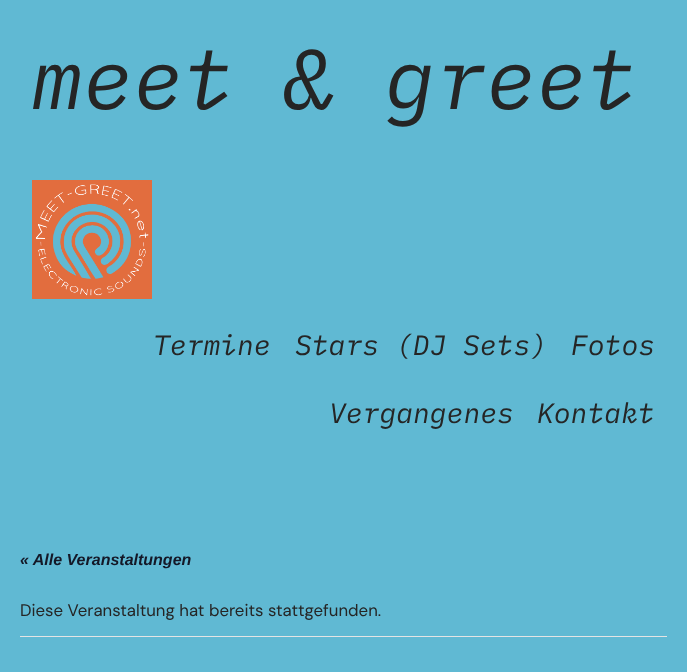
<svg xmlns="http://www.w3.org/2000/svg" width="687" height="672">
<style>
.a{font:italic 84px IBM Plex Mono;fill:#252525}
.b{font:italic 28px IBM Plex Mono;fill:#252525}
.c{font:italic bold 16px Liberation Sans;fill:#141827}
.d{font:16.8px DM Sans;fill:#252525}
</style>
<rect width="100%" height="100%" fill="#60b9d3"/>
<image href="1.png" x="32" y="180" width="120" height="119"/>
<path fill="#e4e4e4" d="M20 636h647v1H20z"/>
<text class="a" x="32" y="109">meet &amp; greet</text>
<text class="b" x="153" y="355">Termine</text>
<text class="b" x="295" y="355">Stars (DJ Sets)</text>
<text class="b" x="571" y="355">Fotos</text>
<text class="b" x="329" y="423">Vergangenes</text>
<text class="b" x="537" y="423">Kontakt</text>
<text class="c" x="20" y="565">« Alle Veranstaltungen</text>
<text class="d" x="20" y="616">Diese Veranstaltung hat bereits stattgefunden.</text>
</svg>
